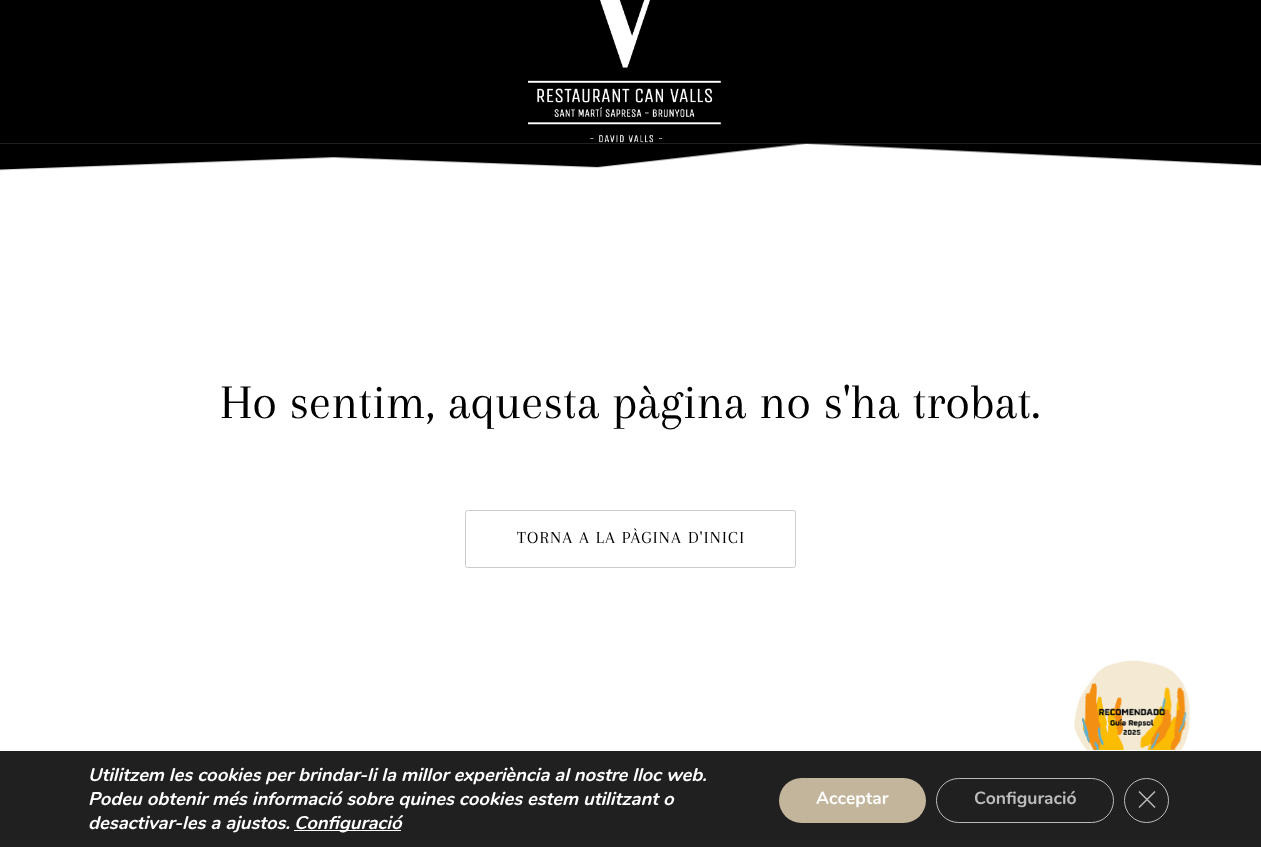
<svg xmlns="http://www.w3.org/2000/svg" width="1261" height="847">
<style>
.a{font:50px Arapey;fill:#000}
.b{font:17.5px Arapey;letter-spacing:1.25px;fill:#000}
.c{font:italic bold 18.35px Nunito;fill:#fff}
.d{font:bold 17.5px Nunito;fill:#fff}
.e{font:bold 17.5px Nunito;fill:#bcbcbc}
</style>
<rect width="100%" height="100%" fill="#fff"/>
<path fill="#000" d="M0 0h1261v171H0z"/>
<image href="1.png" x="528" y="0" width="194" height="143"/>
<image href="2.png" x="0" y="143" width="1261" height="38"/>
<rect fill="none" stroke="#ccc" x="465.5" y="510.5" width="330" height="57" rx="2"/>
<image href="3.png" x="1074" y="660" width="116" height="90"/>
<path fill="#202020" d="M0 751h1261v96H0z"/>
<path fill="#fff" d="M294 830h107v1H294z"/>
<rect fill="#c2b59b" x="779" y="778" width="147" height="45" rx="22.5"/>
<rect fill="none" stroke="#bcbcbc" x="936.5" y="778.5" width="177" height="44" rx="22"/>
<circle fill="none" stroke="#bcbcbc" cx="1146.5" cy="800.5" r="22"/>
<path fill="#bcbcbc" d="M1154.5 791l1 1l-16 16l-1-1z"/>
<path fill="#bcbcbc" d="M1138.5 792l1-1l16 16l-1 1z"/>
<text class="a" x="220" y="418">Ho sentim, aquesta pàgina no s'ha trobat.</text>
<text class="b" x="517" y="543">TORNA A LA PÀGINA D'INICI</text>
<text class="c" x="88" y="781">Utilitzem les cookies per brindar-li la millor experiència al nostre lloc web.</text>
<text class="c" x="88" y="805">Podeu obtenir més informació sobre quines cookies estem utilitzant o</text>
<text class="c" x="88" y="829">desactivar-les a ajustos.</text>
<text class="c" x="294" y="829">Configuració</text>
<text class="d" x="816" y="804">Acceptar</text>
<text class="e" x="974" y="804">Configuració</text>
</svg>
